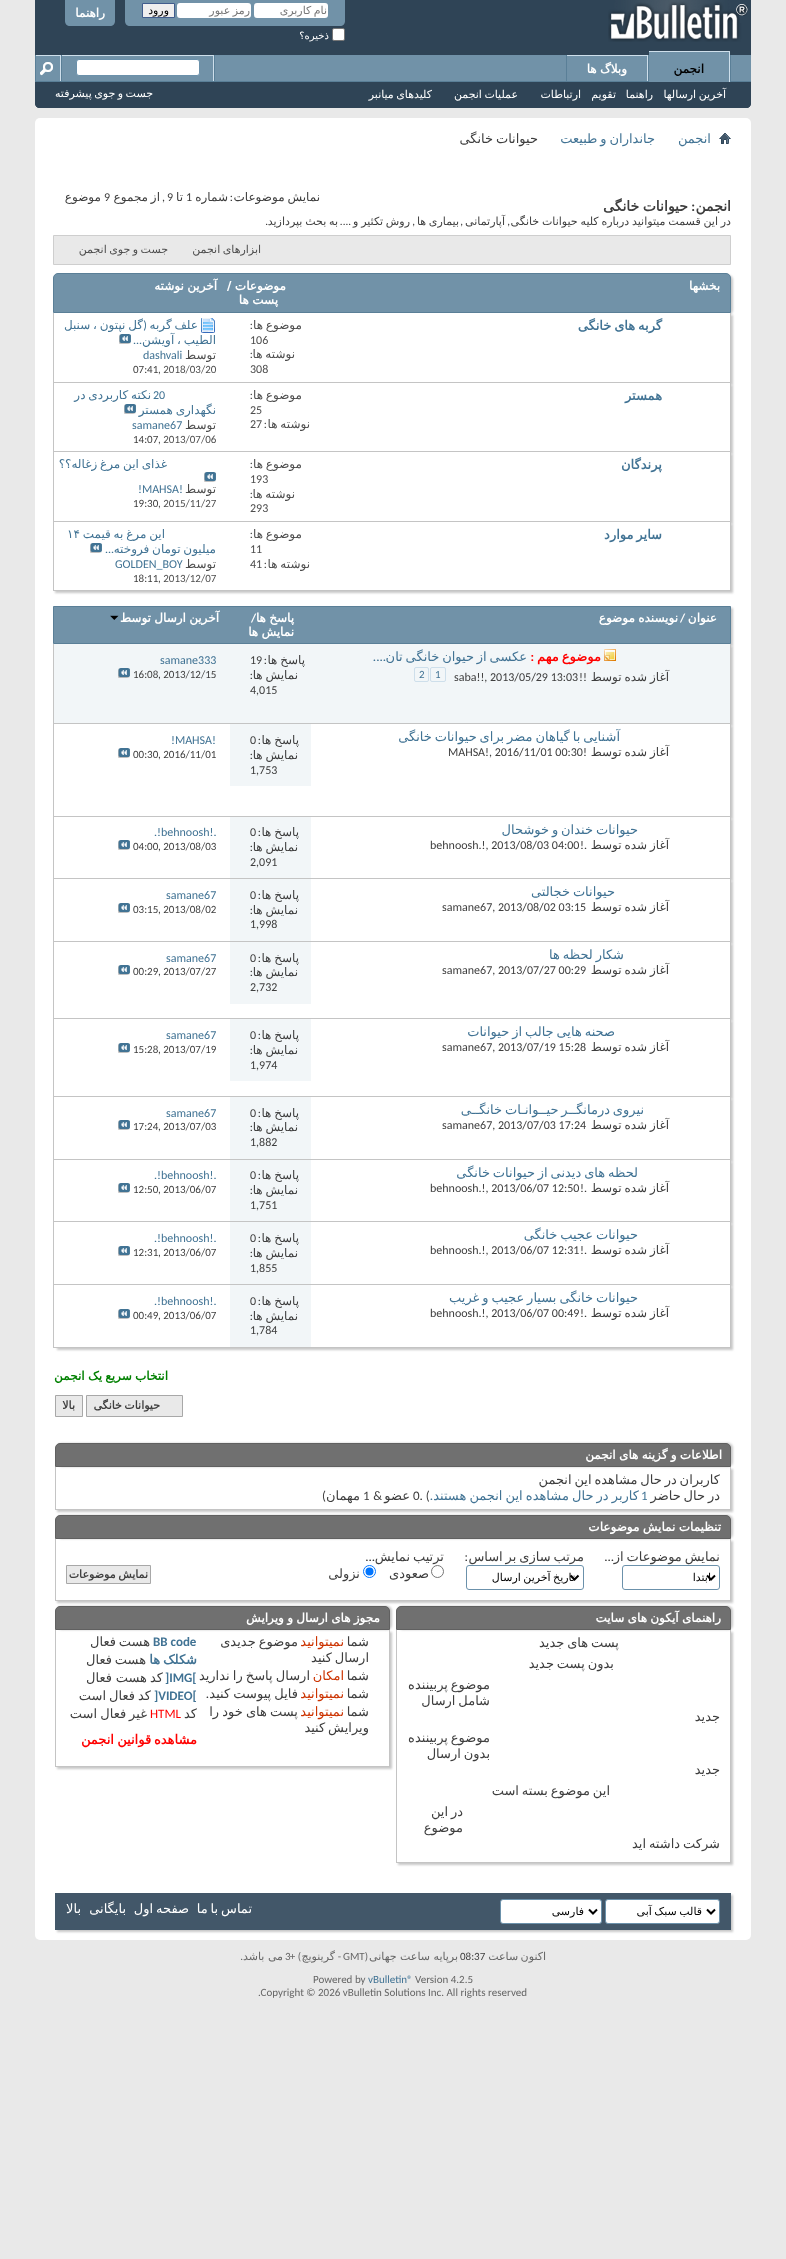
<svg xmlns="http://www.w3.org/2000/svg" width="786" height="2259">
<style>
.a{font:11px DejaVu Sans;direction:rtl;fill:#777}
.b{font:11px DejaVu Sans;direction:rtl;fill:#000}
.c{font:10px DejaVu Sans;direction:rtl;fill:#fff}
.d{font:bold 12px DejaVu Sans;direction:rtl;fill:#fff}
.e{font:bold 12px DejaVu Sans;direction:rtl;fill:#000}
.f{font:11px DejaVu Sans;direction:rtl;fill:#fff}
.g{font:13px DejaVu Sans;direction:rtl;fill:#417394}
.h{font:13px DejaVu Sans;direction:rtl;fill:#3e3e3e}
.i{font:bold 14px DejaVu Sans;direction:rtl;fill:#3e3e3e}
.j{font:bold 14px Carlito;direction:rtl;fill:#3e3e3e}
.k{font:11.05px DejaVu Sans;direction:rtl;fill:#3e3e3e}
.l{font:11.05px Carlito;direction:rtl;fill:#3e3e3e}
.m{font:12px DejaVu Sans;direction:rtl;fill:#3e3e3e}
.n{font:12px Carlito;direction:rtl;fill:#3e3e3e}
.o{font:12px Carlito;fill:#3e3e3e}
.p{font:11px DejaVu Sans;direction:rtl;fill:#4e4e4e}
.q{font:bold 13px DejaVu Sans;direction:rtl;fill:#417394}
.r{font:12px DejaVu Sans;direction:rtl;fill:#4e4e4e}
.s{font:12px Carlito;direction:rtl;fill:#4e4e4e}
.t{font:12px Carlito;fill:#4e4e4e}
.u{font:12px DejaVu Sans;direction:rtl;fill:#417394}
.v{font:12px Carlito;direction:rtl;fill:#417394}
.w{font:12px Carlito;fill:#417394}
.x{font:11px Carlito;fill:#4e4e4e}
.y{font:11px Carlito;fill:#3e3e3e}
.z{font:12px DejaVu Sans;fill:#417394}
.a1{font:bold 12px Carlito;fill:#fff}
.b1{font:bold 13px DejaVu Sans;direction:rtl;fill:#f00}
.c1{font:bold 13px Carlito;direction:rtl;fill:#f00}
.d1{font:13px Carlito;direction:rtl;fill:#417394}
.e1{font:11px Carlito;fill:#417394}
.f1{font:bold 12px DejaVu Sans;direction:rtl;fill:#008000}
.g1{font:bold 11px DejaVu Sans;direction:rtl;fill:#3e3e3e}
.h1{font:13px Carlito;fill:#417394}
.i1{font:13px Carlito;fill:#3e3e3e}
.j1{font:13px Carlito;direction:rtl;fill:#3e3e3e}
.k1{font:13px DejaVu Sans;direction:rtl;fill:#c30}
.l1{font:bold 13px Carlito;fill:#417394}
.m1{font:13px Carlito;fill:#f00}
.n1{font:13px DejaVu Sans;direction:rtl;fill:#fff}
.o1{font:11px DejaVu Sans;direction:rtl;fill:#666}
.p1{font:11px Carlito;direction:rtl;fill:#666}
.q1{font:11px Carlito;fill:#666}
</style>
<defs>
<clipPath id="clip1"><path d="M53 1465h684v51h-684zm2 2h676v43h-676z" clip-rule="evenodd"/></clipPath>
<clipPath id="clip2"><path d="M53 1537h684v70h-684zm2 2h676v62h-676z" clip-rule="evenodd"/></clipPath>
<clipPath id="clip3"><path d="M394 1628h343v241h-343zm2 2h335v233h-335z" clip-rule="evenodd"/></clipPath>
<clipPath id="clip4"><path d="M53 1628h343v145h-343zm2 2h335v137h-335z" clip-rule="evenodd"/></clipPath>
</defs>
<rect width="100%" height="100%" fill="#e9e9e9"/>
<path fill="#2f4456" d="M35 0h716v103c0 3-2 5-5 5h-706c-3 0-5-2-5-5z"/>
<image href="1.png" x="608" y="0" width="140" height="42"/>
<path fill="#7192a8" d="M125 0h220v21c0 3-2 5-5 5h-210c-3 0-5-2-5-5z"/>
<rect fill="#fff" x="254" y="3" width="74" height="15" rx="3"/>
<rect fill="#fff" x="177" y="3" width="74" height="15" rx="3"/>
<path fill="#efefef" stroke="#415d8d" d="M142.5 3.5h32v14H142.5z"/>
<rect fill="#fff" stroke="#767676" x="332.5" y="28.5" width="12" height="12" rx="1.5"/>
<path fill="#7192a8" d="M65 0h50v21c0 3-2 5-5 5h-40c-3 0-5-2-5-5z"/>
<path fill="#2f4456" d="M35 55h716v48c0 3-2 5-5 5h-706c-3 0-5-2-5-5z"/>
<path fill="#7192a8" d="M36 55h715v26H36z"/>
<path fill="#5a7f97" d="M730 55h1v26H730z"/>
<path fill="#5a7f97" d="M648 55h1v26H648z"/>
<path fill="#5a7f97" d="M566 55h1v27H566z"/>
<path fill="#cedfeb" d="M567 55h81v1H567z"/>
<path fill="#cedfeb" d="M647 55h1v27H647z"/>
<path fill="#5a7f97" d="M35 81h716v1H35z"/>
<path fill="#7192a8" d="M649 52h80v30H649z"/>
<path fill="#cedfeb" d="M649 51h81v1H649z"/>
<path fill="#cedfeb" d="M729 51h1v31H729z"/>
<path fill="#5a7f97" d="M214 55h1v26H214z"/>
<path fill="#cedfeb" d="M62 55h152v1H62z"/>
<path fill="#cedfeb" d="M213 55h1v26H213z"/>
<rect fill="#fff" stroke="#6b91ab" x="76.5" y="59.5" width="123" height="16" rx="2.5"/>
<path fill="#5a7f97" d="M61 55h1v26H61z"/>
<path fill="#5a7f97" d="M35 55h1v26H35z"/>
<path fill="#cedfeb" d="M36 55h25v1H36z"/>
<path fill="#cedfeb" d="M60 55h1v26H60z"/>
<image href="2.png" x="40" y="62" width="13" height="14"/>
<rect fill="#fff" x="35" y="118" width="716" height="1822" rx="5"/>
<image href="3.png" x="719" y="133" width="12" height="11"/>
<path fill="#e9e9e9" stroke="#cecece" d="M53.5 235.5h677v29H53.5z"/>
<rect fill="#c8c8c8" filter="blur(1px)" x="55" y="275" width="678" height="40" rx="5"/>
<path fill="#7192a8" stroke="#5a7f97" d="M58 273.5h668c2.5 0 4.5 2 4.5 4.5v34.5h-677v-34.5c0-2.5 2-4.5 4.5-4.5z"/>
<path fill="#c8c8c8" filter="blur(1px)" d="M55 315h678v70H55z"/>
<path fill="#fff" d="M54 313h676v69H54z"/>
<path fill="#c4c4c4" d="M730 313h1v70H730z"/>
<path fill="#c4c4c4" d="M53 382h678v1H53z"/>
<path fill="#c4c4c4" d="M53 313h1v70H53z"/>
<image href="4.png" x="201" y="318" width="14" height="15"/>
<image href="5.png" x="119" y="334" width="12" height="10"/>
<path fill="#c8c8c8" filter="blur(1px)" d="M55 385h678v69H55z"/>
<path fill="#fff" d="M54 383h676v68H54z"/>
<path fill="#c4c4c4" d="M730 383h1v69H730z"/>
<path fill="#c4c4c4" d="M53 451h678v1H53z"/>
<path fill="#c4c4c4" d="M53 383h1v69H53z"/>
<image href="5.png" x="124" y="404" width="12" height="10"/>
<path fill="#c8c8c8" filter="blur(1px)" d="M55 454h678v70H55z"/>
<path fill="#fff" d="M54 452h676v69H54z"/>
<path fill="#c4c4c4" d="M730 452h1v70H730z"/>
<path fill="#c4c4c4" d="M53 521h678v1H53z"/>
<path fill="#c4c4c4" d="M53 452h1v70H53z"/>
<image href="5.png" x="204" y="472" width="12" height="10"/>
<path fill="#c8c8c8" filter="blur(1px)" d="M55 524h678v69H55z"/>
<path fill="#fff" d="M54 522h676v68H54z"/>
<path fill="#c4c4c4" d="M730 522h1v69H730z"/>
<path fill="#c4c4c4" d="M53 590h678v1H53z"/>
<path fill="#c4c4c4" d="M53 522h1v69H53z"/>
<image href="5.png" x="90" y="543" width="12" height="10"/>
<path fill="#c8c8c8" filter="blur(1px)" d="M55 608h678v38H55z"/>
<path fill="#7192a8" stroke="#5a7f97" d="M53.5 606.5h677v37H53.5z"/>
<image href="6.png" x="110" y="615" width="9" height="5"/>
<path fill="#c8c8c8" filter="blur(1px)" d="M57 646h676v80H57z"/>
<path fill="#f2f6f8" d="M54 644h676v79H54z"/>
<path fill="#c4c4c4" d="M730 644h1v80H730z"/>
<path fill="#c4c4c4" d="M53 723h678v1H53z"/>
<path fill="#c4c4c4" d="M53 644h1v80H53z"/>
<image href="7.png" x="604" y="649" width="12" height="12"/>
<rect fill="none" stroke="#cedfeb" x="430.5" y="667.5" width="15" height="14" rx="1.5"/>
<rect fill="none" stroke="#cedfeb" x="414.5" y="667.5" width="14" height="14" rx="1.5"/>
<image href="8.png" x="118" y="668" width="12" height="10"/>
<path fill="#c8c8c8" filter="blur(1px)" d="M57 726h676v93H57z"/>
<path fill="#fff" d="M55 724h675v92H55z"/>
<path fill="#c4c4c4" d="M730 724h1v93H730z"/>
<path fill="#c4c4c4" d="M53 816h678v1H53z"/>
<path fill="#c4c4c4" d="M53 724h1v93H53z"/>
<path fill="#f2f6f8" d="M230 724h81v62H230z"/>
<image href="5.png" x="118" y="748" width="12" height="10"/>
<path fill="#c8c8c8" filter="blur(1px)" d="M57 819h676v62H57z"/>
<path fill="#fff" d="M55 817h675v61H55z"/>
<path fill="#c4c4c4" d="M730 817h1v62H730z"/>
<path fill="#c4c4c4" d="M53 878h678v1H53z"/>
<path fill="#c4c4c4" d="M53 817h1v62H53z"/>
<path fill="#f2f6f8" d="M230 817h81v61H230z"/>
<image href="5.png" x="118" y="840" width="12" height="10"/>
<path fill="#c8c8c8" filter="blur(1px)" d="M57 881h676v63H57z"/>
<path fill="#fff" d="M55 879h675v62H55z"/>
<path fill="#c4c4c4" d="M730 879h1v63H730z"/>
<path fill="#c4c4c4" d="M53 941h678v1H53z"/>
<path fill="#c4c4c4" d="M53 879h1v63H53z"/>
<path fill="#f2f6f8" d="M230 879h81v62H230z"/>
<image href="5.png" x="118" y="903" width="12" height="10"/>
<path fill="#c8c8c8" filter="blur(1px)" d="M57 944h676v77H57z"/>
<path fill="#fff" d="M55 942h675v76H55z"/>
<path fill="#c4c4c4" d="M730 942h1v77H730z"/>
<path fill="#c4c4c4" d="M53 1018h678v1H53z"/>
<path fill="#c4c4c4" d="M53 942h1v77H53z"/>
<path fill="#f2f6f8" d="M230 942h81v62H230z"/>
<image href="5.png" x="118" y="965" width="12" height="10"/>
<path fill="#c8c8c8" filter="blur(1px)" d="M57 1021h676v78H57z"/>
<path fill="#fff" d="M55 1019h675v77H55z"/>
<path fill="#c4c4c4" d="M730 1019h1v78H730z"/>
<path fill="#c4c4c4" d="M53 1096h678v1H53z"/>
<path fill="#c4c4c4" d="M53 1019h1v78H53z"/>
<path fill="#f2f6f8" d="M230 1019h81v62H230z"/>
<image href="5.png" x="118" y="1043" width="12" height="10"/>
<path fill="#c8c8c8" filter="blur(1px)" d="M57 1099h676v63H57z"/>
<path fill="#fff" d="M55 1097h675v62H55z"/>
<path fill="#c4c4c4" d="M730 1097h1v63H730z"/>
<path fill="#c4c4c4" d="M53 1159h678v1H53z"/>
<path fill="#c4c4c4" d="M53 1097h1v63H53z"/>
<path fill="#f2f6f8" d="M230 1097h81v62H230z"/>
<image href="5.png" x="118" y="1120" width="12" height="10"/>
<path fill="#c8c8c8" filter="blur(1px)" d="M57 1162h676v62H57z"/>
<path fill="#fff" d="M55 1160h675v61H55z"/>
<path fill="#c4c4c4" d="M730 1160h1v62H730z"/>
<path fill="#c4c4c4" d="M53 1221h678v1H53z"/>
<path fill="#c4c4c4" d="M53 1160h1v62H53z"/>
<path fill="#f2f6f8" d="M230 1160h81v61H230z"/>
<image href="5.png" x="118" y="1183" width="12" height="10"/>
<path fill="#c8c8c8" filter="blur(1px)" d="M57 1224h676v63H57z"/>
<path fill="#fff" d="M55 1222h675v62H55z"/>
<path fill="#c4c4c4" d="M730 1222h1v63H730z"/>
<path fill="#c4c4c4" d="M53 1284h678v1H53z"/>
<path fill="#c4c4c4" d="M53 1222h1v63H53z"/>
<path fill="#f2f6f8" d="M230 1222h81v62H230z"/>
<image href="5.png" x="118" y="1246" width="12" height="10"/>
<path fill="#c8c8c8" filter="blur(1px)" d="M57 1287h676v63H57z"/>
<path fill="#fff" d="M55 1285h675v62H55z"/>
<path fill="#c4c4c4" d="M730 1285h1v63H730z"/>
<path fill="#c4c4c4" d="M53 1347h678v1H53z"/>
<path fill="#c4c4c4" d="M53 1285h1v63H53z"/>
<path fill="#f2f6f8" d="M230 1285h81v62H230z"/>
<image href="5.png" x="118" y="1309" width="12" height="10"/>
<path fill="#e9e9e9" stroke="#a8a8a8" d="M86.5 1395.5h96v21H86.5z"/>
<path fill="#e9e9e9" stroke="#a8a8a8" d="M55.5 1395.5h27v21H55.5z"/>
<g clip-path="url(#clip1)">
<path fill="#c8c8c8" filter="blur(1px)" d="M57 1469h676v43H57z"/>
</g>
<path fill="#c4c4c4" d="M730 1467h1v43H730z"/>
<path fill="#c4c4c4" d="M55 1509h676v1H55z"/>
<path fill="#c4c4c4" d="M55 1467h1v43H55z"/>
<rect fill="#c8c8c8" filter="blur(1px)" x="57" y="1443" width="676" height="24" rx="5"/>
<path fill="#707070" stroke="#606060" d="M60 1443.5h666c2.5 0 4.5 2 4.5 4.5v18.5h-675v-18.5c0-2.5 2-4.5 4.5-4.5z"/>
<g clip-path="url(#clip2)">
<path fill="#c8c8c8" filter="blur(1px)" d="M57 1541h676v62H57z"/>
</g>
<path fill="#c4c4c4" d="M730 1539h1v62H730z"/>
<path fill="#c4c4c4" d="M55 1600h676v1H55z"/>
<path fill="#c4c4c4" d="M55 1539h1v62H55z"/>
<rect fill="#c8c8c8" filter="blur(1px)" x="57" y="1515" width="676" height="24" rx="5"/>
<path fill="#707070" stroke="#606060" d="M60 1515.5h666c2.5 0 4.5 2 4.5 4.5v18.5h-675v-18.5c0-2.5 2-4.5 4.5-4.5z"/>
<rect fill="none" stroke="#6b91ab" x="622.5" y="1565.5" width="97" height="24" rx="2.5"/>
<path fill="none" stroke="#000" stroke-width="2" d="M707 1575.5l4 4l4-4"/>
<rect fill="none" stroke="#6b91ab" x="466.5" y="1565.5" width="117" height="24" rx="2.5"/>
<path fill="none" stroke="#000" stroke-width="2" d="M570.5 1575.5l4 4l4-4"/>
<circle fill="none" stroke="#767676" cx="437.5" cy="1571.5" r="6"/>
<circle fill="none" stroke="#0075ff" cx="369.5" cy="1571.5" r="6"/>
<circle fill="#0075ff" cx="369.5" cy="1571.5" r="4"/>
<path fill="#e9e9e9" stroke="#a8a8a8" d="M66.5 1565.5h84v18H66.5z"/>
<g clip-path="url(#clip3)">
<path fill="#c8c8c8" filter="blur(1px)" d="M398 1632h335v233H398z"/>
</g>
<path fill="#c4c4c4" d="M730 1630h1v233H730z"/>
<path fill="#c4c4c4" d="M396 1862h335v1H396z"/>
<path fill="#c4c4c4" d="M396 1630h1v233H396z"/>
<rect fill="#c8c8c8" filter="blur(1px)" x="398" y="1606" width="335" height="24" rx="5"/>
<path fill="#707070" stroke="#606060" d="M401 1606.5h325c2.5 0 4.5 2 4.5 4.5v18.5h-334v-18.5c0-2.5 2-4.5 4.5-4.5z"/>
<g clip-path="url(#clip4)">
<path fill="#c8c8c8" filter="blur(1px)" d="M57 1632h335v137H57z"/>
</g>
<path fill="#c4c4c4" d="M389 1630h1v137H389z"/>
<path fill="#c4c4c4" d="M55 1766h335v1H55z"/>
<path fill="#c4c4c4" d="M55 1630h1v137H55z"/>
<rect fill="#c8c8c8" filter="blur(1px)" x="57" y="1606" width="335" height="24" rx="5"/>
<path fill="#707070" stroke="#606060" d="M60 1606.5h325c2.5 0 4.5 2 4.5 4.5v18.5h-334v-18.5c0-2.5 2-4.5 4.5-4.5z"/>
<path fill="#c8c8c8" filter="blur(1px)" d="M57 1895h676v37H57z"/>
<path fill="#425769" d="M55 1893h676v37H55z"/>
<rect fill="#fff" stroke="#6b91ab" x="605.5" y="1899.5" width="114" height="24" rx="2.5"/>
<path fill="none" stroke="#000" stroke-width="2" d="M707 1909.5l4 4l4-4"/>
<rect fill="#fff" stroke="#6b91ab" x="500.5" y="1899.5" width="101" height="24" rx="2.5"/>
<path fill="none" stroke="#000" stroke-width="2" d="M589 1909.5l4 4l4-4"/>
<text class="a" x="327" y="14" word-spacing="-1">نام کاربری</text>
<text class="a" x="250" y="14" word-spacing="-1">رمز عبور</text>
<text class="b" x="169" y="14">ورود</text>
<text class="c" x="329" y="39">ذخیره؟</text>
<text class="d" x="105" y="17">راهنما</text>
<text class="e" x="704" y="73">انجمن</text>
<text class="d" x="627" y="73" word-spacing="-0.5">وبلاگ ها</text>
<text class="f" x="726" y="98" word-spacing="-1">آخرین ارسالها</text>
<text class="f" x="653" y="98">راهنما</text>
<text class="f" x="616" y="98">تقویم</text>
<text class="f" x="581" y="98">ارتباطات</text>
<text class="f" x="518" y="98" word-spacing="-1">عملیات انجمن</text>
<text class="f" x="432" y="98" word-spacing="-1">کلیدهای میانبر</text>
<text class="f" x="153" y="97" word-spacing="-1">جست و جوی پیشرفته</text>
<text class="g" x="711" y="143">انجمن</text>
<text class="g" x="655" y="143" word-spacing="-1.25">جانداران و طبیعت</text>
<text class="h" x="538" y="143" word-spacing="-1.25">حیوانات خانگی</text>
<text class="i" x="731" y="211">انجمن</text>
<text class="j" x="695" y="211">:</text>
<text class="i" x="688" y="211" word-spacing="-1">حیوانات خانگی</text>
<text class="k" x="731" y="225" word-spacing="-0.75">در اين قسمت ميتوانيد درباره كليه حیوانات خانگی</text>
<text class="l" x="510" y="225">,</text>
<text class="k" x="505" y="225">آپارتمانی</text>
<text class="l" x="463" y="225">,</text>
<text class="k" x="459" y="225" word-spacing="-0.75">بیماری ها</text>
<text class="l" x="415" y="225">,</text>
<text class="k" x="410" y="225" word-spacing="-0.75">روش تکثیر و</text>
<text class="l" x="351" y="225">....</text>
<text class="k" x="338" y="225" word-spacing="-0.75">به بحث بپردازيد</text>
<text class="l" x="268" y="225">.</text>
<text class="m" x="320" y="201" word-spacing="-1">نمایش موضوعات</text>
<text class="n" x="233" y="201">:</text>
<text class="m" x="228" y="201">شماره</text>
<text class="o" x="186" y="201">1</text>
<text class="m" x="183" y="201">تا</text>
<text class="o" x="167" y="201">9</text>
<text class="n" x="165" y="201">,</text>
<text class="m" x="160" y="201" word-spacing="-1">از مجموع</text>
<text class="o" x="104" y="201">‍9</text>
<text class="m" x="101" y="201">موضوع</text>
<text class="p" x="261" y="253" word-spacing="-1">ابزارهای انجمن</text>
<text class="p" x="168" y="253" word-spacing="-1">جست و جوی انجمن</text>
<text class="d" x="720" y="290">بخشها</text>
<text class="d" x="286" y="290">موضوعات /</text>
<text class="d" x="278" y="304" word-spacing="-0.5">پست ها</text>
<text class="d" x="217" y="290" word-spacing="-0.5">آخرين نوشته</text>
<text class="q" x="662" y="330" word-spacing="-1.25">گربه های خانگی</text>
<text class="r" x="302" y="329" word-spacing="-1">موضوع ها</text>
<text class="s" x="253" y="329">:</text>
<text class="t" x="250" y="344">106</text>
<text class="r" x="295" y="358" word-spacing="-1">نوشته ها</text>
<text class="s" x="253" y="358">:</text>
<text class="t" x="250" y="373">308</text>
<text class="u" x="198" y="329" word-spacing="-1">علف گربه</text>
<text class="v" x="147" y="329">(</text>
<text class="u" x="143" y="329" word-spacing="-1">گل نپتون ، سنبل</text>
<text class="u" x="216" y="344" word-spacing="-1">الطیب ، آویشن</text>
<text class="v" x="142" y="344">...</text>
<text class="r" x="216" y="359">توسط</text>
<text class="w" x="143" y="359">dashvali</text>
<text class="x" x="158" y="373">, 2018/03/20</text>
<text class="y" x="133" y="373">07:41</text>
<text class="q" x="662" y="400">همستر</text>
<text class="r" x="302" y="399" word-spacing="-1">موضوع ها</text>
<text class="s" x="253" y="399">:</text>
<text class="t" x="250" y="414">25</text>
<text class="r" x="310" y="428" word-spacing="-1">نوشته ها</text>
<text class="s" x="267" y="428">:</text>
<text class="t" x="250" y="428">27</text>
<text class="w" x="153" y="399">20</text>
<text class="u" x="151" y="399" word-spacing="-1">نکته کاربردی در</text>
<text class="u" x="216" y="414" word-spacing="-1">نگهداری همستر</text>
<text class="r" x="216" y="429">توسط</text>
<text class="w" x="132" y="429">samane67</text>
<text class="x" x="158" y="443">, 2013/07/06</text>
<text class="y" x="133" y="443">14:07</text>
<text class="q" x="662" y="469">پرندگان</text>
<text class="r" x="302" y="468" word-spacing="-1">موضوع ها</text>
<text class="s" x="253" y="468">:</text>
<text class="t" x="250" y="483">193</text>
<text class="r" x="295" y="498" word-spacing="-1">نوشته ها</text>
<text class="s" x="253" y="498">:</text>
<text class="t" x="250" y="512">293</text>
<text class="u" x="167" y="468" word-spacing="-1">غذای این مرغ زغاله؟؟</text>
<text class="r" x="216" y="493">توسط</text>
<text class="w" x="138" y="493">!MAHSA!</text>
<text class="x" x="158" y="507">, 2015/11/27</text>
<text class="y" x="133" y="507">19:30</text>
<text class="q" x="662" y="539" word-spacing="-1.25">سایر موارد</text>
<text class="r" x="302" y="538" word-spacing="-1">موضوع ها</text>
<text class="s" x="253" y="538">:</text>
<text class="t" x="250" y="553">11</text>
<text class="r" x="310" y="568" word-spacing="-1">نوشته ها</text>
<text class="s" x="267" y="568">:</text>
<text class="t" x="250" y="568">41</text>
<text class="u" x="165" y="538" word-spacing="-1">این مرغ به قیمت</text>
<text class="z" x="67" y="538">۱۴</text>
<text class="u" x="216" y="553" word-spacing="-1">میلیون تومان فروخته</text>
<text class="v" x="114" y="553">...</text>
<text class="r" x="216" y="568">توسط</text>
<text class="w" x="115" y="568">GOLDEN_BOY</text>
<text class="x" x="158" y="582">, 2013/12/07</text>
<text class="y" x="133" y="582">18:11</text>
<text class="d" x="717" y="622">عنوان</text>
<text class="a1" x="680" y="622">/</text>
<text class="d" x="678" y="622" word-spacing="-0.5">نویسنده موضوع</text>
<text class="d" x="294" y="622" word-spacing="-0.5">پاسخ ها</text>
<text class="a1" x="251" y="622">/</text>
<text class="d" x="294" y="636" word-spacing="-0.5">نمایش ها</text>
<text class="d" x="219" y="622" word-spacing="-0.5">آخرین ارسال توسط</text>
<text class="b1" x="601" y="661" word-spacing="-1">موضوع مهم</text>
<text class="c1" x="534" y="661">:</text>
<text class="g" x="527" y="661" word-spacing="-1.25">عکسی از حیوان خانگی تان</text>
<text class="d1" x="386" y="661">....</text>
<text class="m" x="669" y="681" word-spacing="-1">آغاز شده توسط</text>
<text class="o" x="579" y="681">!!</text>
<text class="o" x="454" y="681">saba!!, 2013/05/29 13:03</text>
<text class="e1" x="435" y="678">1</text>
<text class="e1" x="419" y="678">2</text>
<text class="m" x="305" y="664" word-spacing="-1">پاسخ ها</text>
<text class="n" x="267" y="664">:</text>
<text class="o" x="250" y="664">19</text>
<text class="m" x="298" y="679" word-spacing="-1">نمایش ها</text>
<text class="n" x="253" y="679">:</text>
<text class="o" x="250" y="694">4,015</text>
<text class="w" x="160" y="664">samane333</text>
<text class="y" x="158" y="678">, 2013/12/15</text>
<text class="y" x="133" y="678">16:08</text>
<text class="g" x="620" y="741" word-spacing="-1.25">آشنایی با گیاهان مضر برای حیوانات خانگی</text>
<text class="m" x="669" y="756" word-spacing="-1">آغاز شده توسط</text>
<text class="o" x="583" y="756">!</text>
<text class="o" x="448" y="756">MAHSA!, 2016/11/01 00:30</text>
<text class="m" x="299" y="744" word-spacing="-1">پاسخ ها</text>
<text class="n" x="261" y="744">:</text>
<text class="o" x="250" y="744">0</text>
<text class="m" x="298" y="759" word-spacing="-1">نمایش ها</text>
<text class="n" x="253" y="759">:</text>
<text class="o" x="250" y="774">1,753</text>
<text class="w" x="171" y="744">!MAHSA!</text>
<text class="y" x="158" y="758">, 2016/11/01</text>
<text class="y" x="133" y="758">00:30</text>
<text class="g" x="638" y="834" word-spacing="-1.25">حیوانات خندان و خوشحال</text>
<text class="m" x="669" y="849" word-spacing="-1">آغاز شده توسط</text>
<text class="o" x="580" y="849">!.</text>
<text class="o" x="430" y="849">behnoosh.!, 2013/08/03 04:00</text>
<text class="m" x="299" y="836" word-spacing="-1">پاسخ ها</text>
<text class="n" x="261" y="836">:</text>
<text class="o" x="250" y="836">0</text>
<text class="m" x="298" y="851" word-spacing="-1">نمایش ها</text>
<text class="n" x="253" y="851">:</text>
<text class="o" x="250" y="866">2,091</text>
<text class="w" x="154" y="836">.!behnoosh!.</text>
<text class="y" x="158" y="850">, 2013/08/03</text>
<text class="y" x="133" y="850">04:00</text>
<text class="g" x="615" y="896" word-spacing="-1.25">حیوانات خجالتی</text>
<text class="m" x="669" y="911" word-spacing="-1">آغاز شده توسط</text>
<text class="o" x="442" y="911">samane67, 2013/08/02 03:15</text>
<text class="m" x="299" y="899" word-spacing="-1">پاسخ ها</text>
<text class="n" x="261" y="899">:</text>
<text class="o" x="250" y="899">0</text>
<text class="m" x="298" y="914" word-spacing="-1">نمایش ها</text>
<text class="n" x="253" y="914">:</text>
<text class="o" x="250" y="928">1,998</text>
<text class="w" x="166" y="899">samane67</text>
<text class="y" x="158" y="913">, 2013/08/02</text>
<text class="y" x="133" y="913">03:15</text>
<text class="g" x="624" y="959" word-spacing="-1.25">شکار لحظه ها</text>
<text class="m" x="669" y="974" word-spacing="-1">آغاز شده توسط</text>
<text class="o" x="442" y="974">samane67, 2013/07/27 00:29</text>
<text class="m" x="299" y="962" word-spacing="-1">پاسخ ها</text>
<text class="n" x="261" y="962">:</text>
<text class="o" x="250" y="962">0</text>
<text class="m" x="298" y="976" word-spacing="-1">نمایش ها</text>
<text class="n" x="253" y="976">:</text>
<text class="o" x="250" y="991">2,732</text>
<text class="w" x="166" y="962">samane67</text>
<text class="y" x="158" y="975">, 2013/07/27</text>
<text class="y" x="133" y="975">00:29</text>
<text class="g" x="615" y="1036" word-spacing="-1.25">صحنه هایی جالب از حیوانات</text>
<text class="m" x="669" y="1051" word-spacing="-1">آغاز شده توسط</text>
<text class="o" x="442" y="1051">samane67, 2013/07/19 15:28</text>
<text class="m" x="299" y="1039" word-spacing="-1">پاسخ ها</text>
<text class="n" x="261" y="1039">:</text>
<text class="o" x="250" y="1039">0</text>
<text class="m" x="298" y="1054" word-spacing="-1">نمایش ها</text>
<text class="n" x="253" y="1054">:</text>
<text class="o" x="250" y="1069">1,974</text>
<text class="w" x="166" y="1039">samane67</text>
<text class="y" x="158" y="1053">, 2013/07/19</text>
<text class="y" x="133" y="1053">15:28</text>
<text class="g" x="644" y="1114" word-spacing="-1.25">نیروی درمانگــر حیــوانـات خانگــی</text>
<text class="m" x="669" y="1129" word-spacing="-1">آغاز شده توسط</text>
<text class="o" x="442" y="1129">samane67, 2013/07/03 17:24</text>
<text class="m" x="299" y="1117" word-spacing="-1">پاسخ ها</text>
<text class="n" x="261" y="1117">:</text>
<text class="o" x="250" y="1117">0</text>
<text class="m" x="298" y="1131" word-spacing="-1">نمایش ها</text>
<text class="n" x="253" y="1131">:</text>
<text class="o" x="250" y="1146">1,882</text>
<text class="w" x="166" y="1117">samane67</text>
<text class="y" x="158" y="1130">, 2013/07/03</text>
<text class="y" x="133" y="1130">17:24</text>
<text class="g" x="638" y="1177" word-spacing="-1.25">لحظه های دیدنی از حیوانات خانگی</text>
<text class="m" x="669" y="1192" word-spacing="-1">آغاز شده توسط</text>
<text class="o" x="580" y="1192">!.</text>
<text class="o" x="430" y="1192">behnoosh.!, 2013/06/07 12:50</text>
<text class="m" x="299" y="1179" word-spacing="-1">پاسخ ها</text>
<text class="n" x="261" y="1179">:</text>
<text class="o" x="250" y="1179">0</text>
<text class="m" x="298" y="1194" word-spacing="-1">نمایش ها</text>
<text class="n" x="253" y="1194">:</text>
<text class="o" x="250" y="1209">1,751</text>
<text class="w" x="154" y="1179">.!behnoosh!.</text>
<text class="y" x="158" y="1193">, 2013/06/07</text>
<text class="y" x="133" y="1193">12:50</text>
<text class="g" x="638" y="1239" word-spacing="-1.25">حیوانات عجیب خانگی</text>
<text class="m" x="669" y="1254" word-spacing="-1">آغاز شده توسط</text>
<text class="o" x="580" y="1254">!.</text>
<text class="o" x="430" y="1254">behnoosh.!, 2013/06/07 12:31</text>
<text class="m" x="299" y="1242" word-spacing="-1">پاسخ ها</text>
<text class="n" x="261" y="1242">:</text>
<text class="o" x="250" y="1242">0</text>
<text class="m" x="298" y="1257" word-spacing="-1">نمایش ها</text>
<text class="n" x="253" y="1257">:</text>
<text class="o" x="250" y="1272">1,855</text>
<text class="w" x="154" y="1242">.!behnoosh!.</text>
<text class="y" x="158" y="1256">, 2013/06/07</text>
<text class="y" x="133" y="1256">12:31</text>
<text class="g" x="638" y="1302" word-spacing="-1.25">حیوانات خانگی بسیار عجیب و غریب</text>
<text class="m" x="669" y="1317" word-spacing="-1">آغاز شده توسط</text>
<text class="o" x="580" y="1317">!.</text>
<text class="o" x="430" y="1317">behnoosh.!, 2013/06/07 00:49</text>
<text class="m" x="299" y="1305" word-spacing="-1">پاسخ ها</text>
<text class="n" x="261" y="1305">:</text>
<text class="o" x="250" y="1305">0</text>
<text class="m" x="298" y="1320" word-spacing="-1">نمایش ها</text>
<text class="n" x="253" y="1320">:</text>
<text class="o" x="250" y="1334">1,784</text>
<text class="w" x="154" y="1305">.!behnoosh!.</text>
<text class="y" x="158" y="1319">, 2013/06/07</text>
<text class="y" x="133" y="1319">00:49</text>
<text class="f1" x="168" y="1380" word-spacing="-0.5">انتخاب سریع یک انجمن</text>
<text class="g1" x="160" y="1409" word-spacing="-1">حیوانات خانگی</text>
<text class="g1" x="75" y="1409">بالا</text>
<text class="d" x="722" y="1459" word-spacing="-0.5">اطلاعات و گزینه های انجمن</text>
<text class="h" x="720" y="1484" word-spacing="-1.25">کاربران در حال مشاهده این انجمن</text>
<text class="h" x="720" y="1500" word-spacing="-1.25">در حال حاضر</text>
<text class="h1" x="641" y="1500">1</text>
<text class="g" x="639" y="1500" word-spacing="-1">کاربر در حال مشاهده این انجمن هستند</text>
<text class="d1" x="433" y="1500">.</text>
<text class="i1" x="413" y="1500">0. (</text>
<text class="h" x="410" y="1500">عضو</text>
<text class="j1" x="382" y="1500">&amp;</text>
<text class="i1" x="363" y="1500">1</text>
<text class="h" x="360" y="1500">مهمان</text>
<text class="j1" x="326" y="1500">)</text>
<text class="d" x="721" y="1531" word-spacing="-0.5">تنظیمات نمایش موضوعات</text>
<text class="h" x="720" y="1561" word-spacing="-1.25">نمایش موضوعات از</text>
<text class="j1" x="614" y="1561">...</text>
<text class="b" x="711" y="1581">ابتدا</text>
<text class="h" x="584" y="1561" word-spacing="-1.25">مرتب سازی بر اساس</text>
<text class="j1" x="468" y="1561">:</text>
<text class="b" x="575" y="1581" word-spacing="-1">تاریخ آخرین ارسال</text>
<text class="h" x="444" y="1561" word-spacing="-1.25">ترتیب نمایش</text>
<text class="j1" x="375" y="1561">...</text>
<text class="h" x="429" y="1578">صعودی</text>
<text class="h" x="360" y="1578">نزولی</text>
<text class="g1" x="148" y="1578" word-spacing="-1">نمایش موضوعات</text>
<text class="d" x="721" y="1622" word-spacing="-0.5">راهنمای آیکون های سایت</text>
<text class="h" x="619" y="1647" word-spacing="-1.25">پست های جدید</text>
<text class="h" x="614" y="1668" word-spacing="-1.25">بدون پست جدید</text>
<text class="h" x="490" y="1689" word-spacing="-1.25">موضوع پربیننده</text>
<text class="h" x="490" y="1705" word-spacing="-1.25">شامل ارسال</text>
<text class="h" x="720" y="1721">جدید</text>
<text class="h" x="490" y="1742" word-spacing="-1.25">موضوع پربیننده</text>
<text class="h" x="490" y="1758" word-spacing="-1.25">بدون ارسال</text>
<text class="h" x="720" y="1774">جدید</text>
<text class="h" x="610" y="1795" word-spacing="-1.25">این موضوع بسته است</text>
<text class="h" x="463" y="1816" word-spacing="-1.25">در این</text>
<text class="h" x="463" y="1832">موضوع</text>
<text class="h" x="720" y="1848" word-spacing="-1.25">شرکت داشته اید</text>
<text class="d" x="380" y="1622" word-spacing="-0.5">مجوز های ارسال و ویرایش</text>
<text class="h" x="369" y="1646">شما</text>
<text class="k1" x="344" y="1646">نمیتوانید</text>
<text class="h" x="298" y="1646" word-spacing="-1">موضوع جدیدی</text>
<text class="h" x="369" y="1662" word-spacing="-1.25">ارسال کنید</text>
<text class="h" x="369" y="1680">شما</text>
<text class="k1" x="344" y="1680">امکان</text>
<text class="h" x="310" y="1680" word-spacing="-1">ارسال پاسخ را ندارید</text>
<text class="h" x="369" y="1698">شما</text>
<text class="k1" x="344" y="1698">نمیتوانید</text>
<text class="h" x="298" y="1698" word-spacing="-1">فایل پیوست کنید</text>
<text class="j1" x="209" y="1698">.</text>
<text class="h" x="369" y="1716">شما</text>
<text class="k1" x="344" y="1716">نمیتوانید</text>
<text class="h" x="298" y="1716" word-spacing="-1">پست های خود را</text>
<text class="h" x="369" y="1732" word-spacing="-1.25">ویرایش کنید</text>
<text class="l1" x="153" y="1646">BB code</text>
<text class="h" x="150" y="1646">هست</text>
<text class="h" x="116" y="1646">فعال</text>
<text class="q" x="197" y="1664" word-spacing="-1.25">شکلک ها</text>
<text class="h" x="146" y="1664">هست</text>
<text class="h" x="112" y="1664">فعال</text>
<text class="l1" x="165" y="1682">]IMG[</text>
<text class="h" x="163" y="1682" word-spacing="-1">کد هست</text>
<text class="h" x="112" y="1682">فعال</text>
<text class="l1" x="154" y="1700">]VIDEO[</text>
<text class="h" x="151" y="1700">کد</text>
<text class="h" x="135" y="1700">فعال</text>
<text class="h" x="106" y="1700">است</text>
<text class="h" x="197" y="1718">کد</text>
<text class="m1" x="150" y="1718">HTML</text>
<text class="h" x="147" y="1718" word-spacing="-1.25">غیر فعال</text>
<text class="h" x="97" y="1718">است</text>
<text class="b1" x="197" y="1744" word-spacing="-1.25">مشاهده قوانین</text>
<text class="b1" x="114" y="1744">انجمن</text>
<text class="b" x="702" y="1915" word-spacing="-1">قالب سبک آبی</text>
<text class="b" x="584" y="1915">فارسی</text>
<text class="n1" x="252" y="1913" word-spacing="-1.25">تماس با ما</text>
<text class="n1" x="189" y="1913" word-spacing="-1.25">صفحه اول</text>
<text class="n1" x="126" y="1913">بایگانی</text>
<text class="n1" x="81" y="1913">بالا</text>
<text class="o1" x="546" y="1960" word-spacing="-1">اکنون ساعت</text>
<text class="y" x="460" y="1960">08:37</text>
<text class="o1" x="458" y="1960">برپایه ساعت جهانی</text>
<text class="p1" x="368" y="1960">(</text>
<text class="q1" x="343" y="1960">GMT</text>
<text class="p1" x="341" y="1960">-</text>
<text class="o1" x="335" y="1960">گرینویچ</text>
<text class="p1" x="301" y="1960">) +</text>
<text class="q1" x="285" y="1960">3</text>
<text class="o1" x="283" y="1960">می باشد</text>
<text class="p1" x="243" y="1960">.</text>
<text class="q1" x="415" y="1983">Version 4.2.5</text>
<text class="e1" x="368" y="1983">vBulletin®</text>
<text class="q1" x="313" y="1983">Powered by</text>
<text class="q1" x="258" y="1996">.Copyright © 2026 vBulletin Solutions Inc. All rights reserved</text>
</svg>
